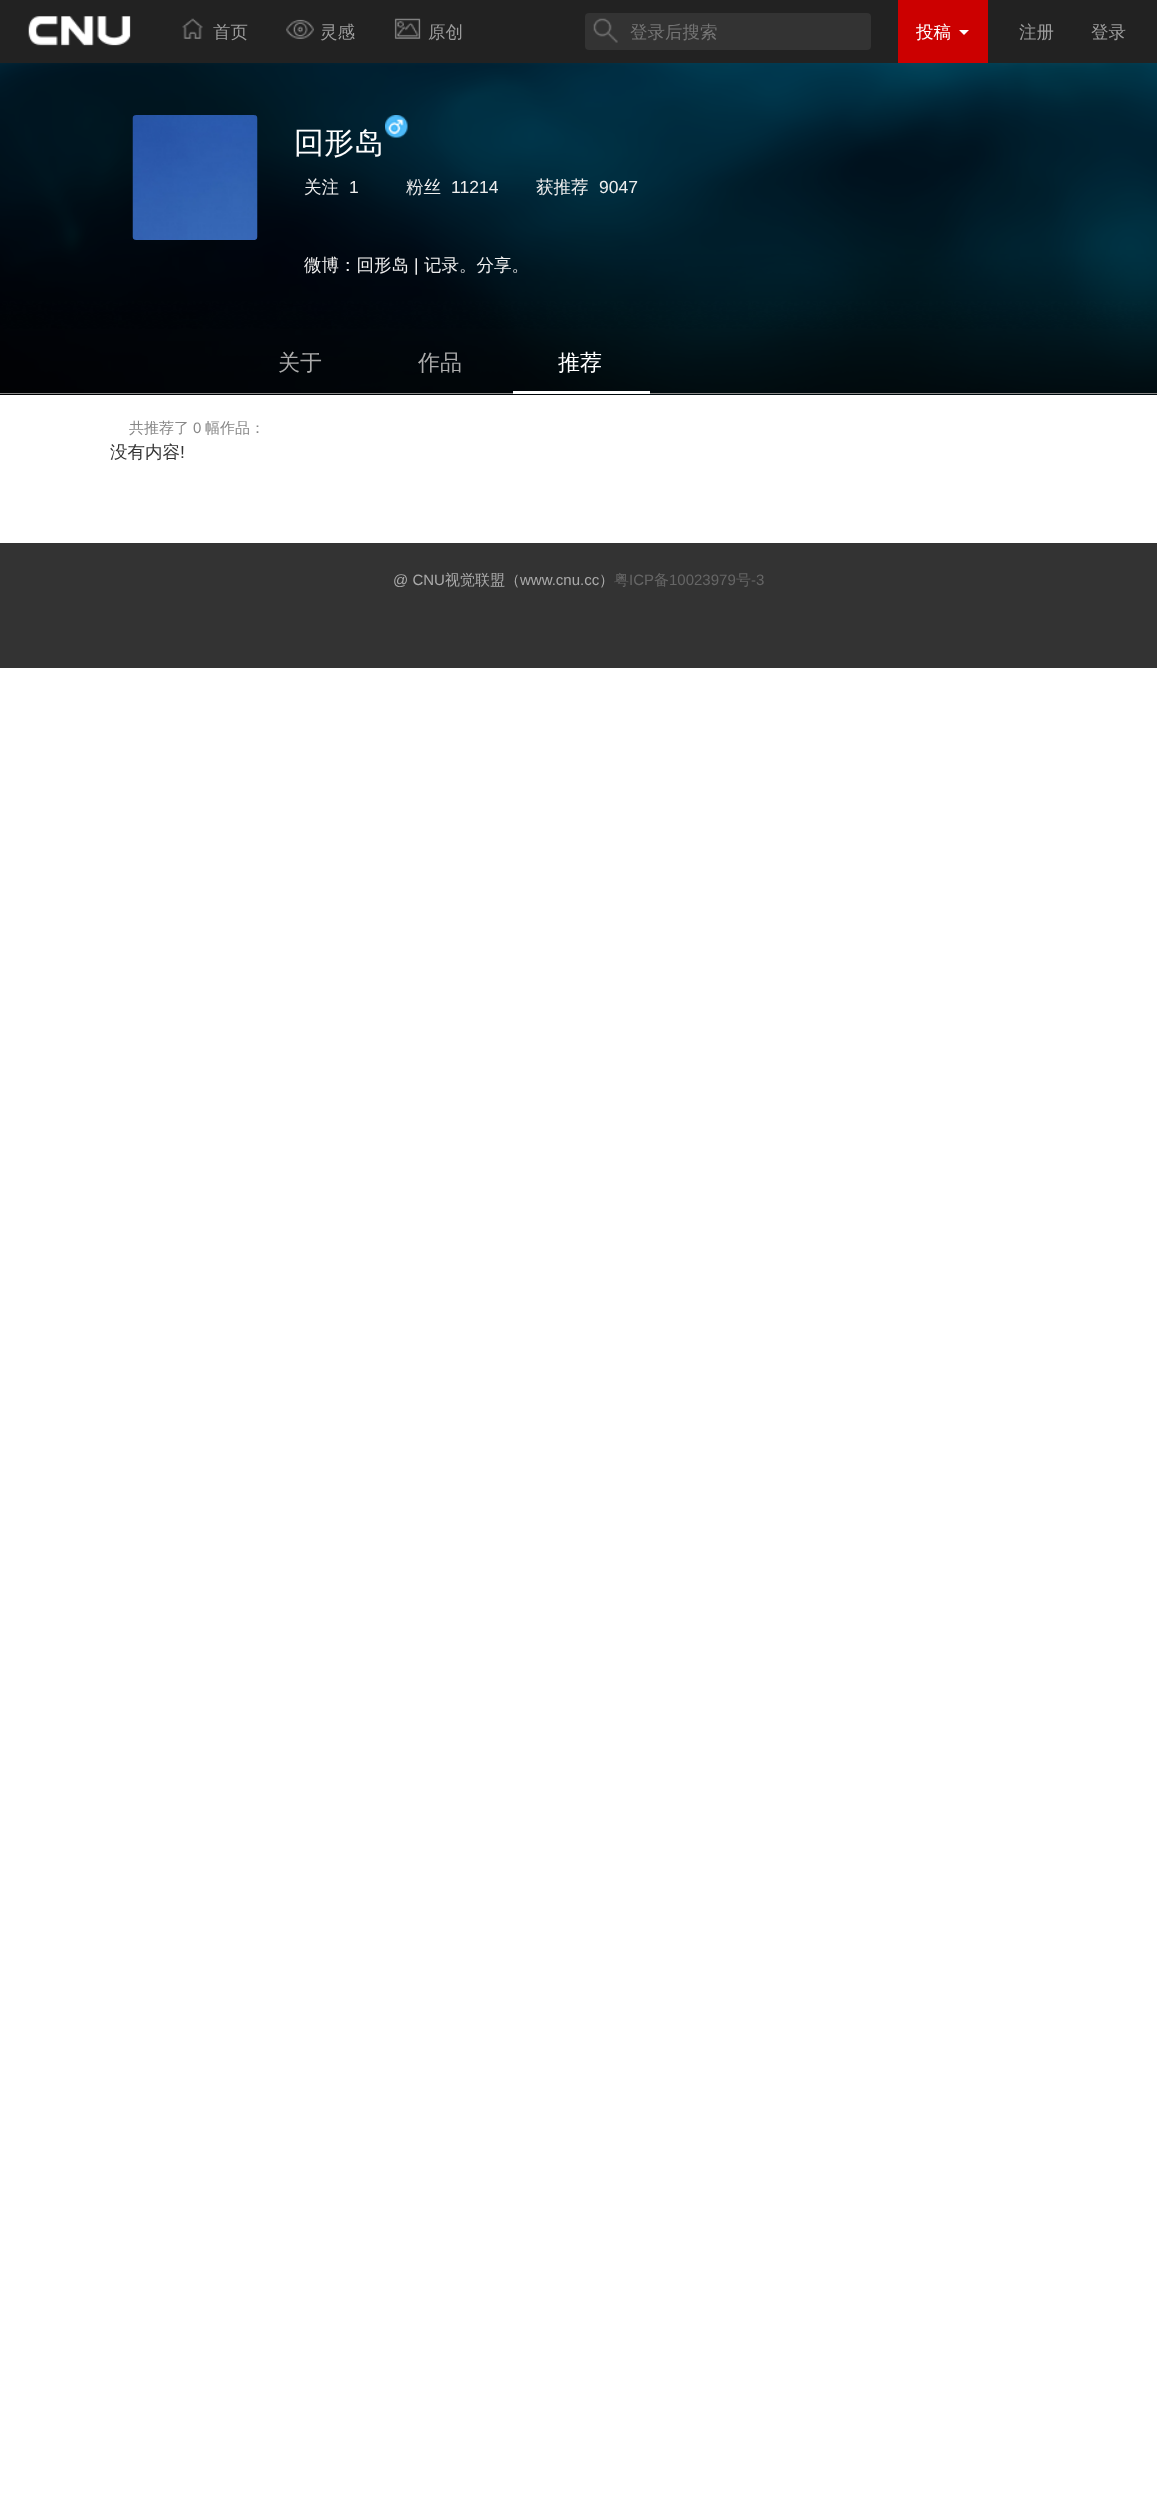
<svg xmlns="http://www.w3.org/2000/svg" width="1157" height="2495">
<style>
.a{font:500 17.5px WenQuanYi Zen Hei;fill:#9d9d9d}
.b{font:500 17.5px WenQuanYi Zen Hei;fill:#757575}
.c{font:500 17.5px WenQuanYi Zen Hei;fill:#fff}
.d{font:500 30px WenQuanYi Zen Hei;fill:#fff}
.e{font:500 17.5px WenQuanYi Zen Hei;fill:#eee}
.f{font:17.5px Liberation Sans;fill:#eee}
.g{font:500 22px WenQuanYi Zen Hei;fill:#aaa}
.h{font:500 22px WenQuanYi Zen Hei;fill:#fff}
.i{font:500 15px WenQuanYi Zen Hei;fill:#888}
.j{font:15px Liberation Sans;fill:#888}
.k{font:500 17.5px WenQuanYi Zen Hei;fill:#333}
.l{font:17.5px Liberation Sans;fill:#333}
.m{font:15px Liberation Sans;fill:#aaa}
.n{font:500 15px WenQuanYi Zen Hei;fill:#aaa}
.o{font:500 15px WenQuanYi Zen Hei;fill:#666}
.p{font:15px Liberation Sans;fill:#666}
</style>
<rect width="100%" height="100%" fill="#fff"/>
<path fill="#222" d="M0 0h1157v63H0z"/>
<image href="1.png" x="28" y="16" width="103" height="30"/>
<image href="2.png" x="182" y="18" width="21" height="21"/>
<image href="3.png" x="286" y="19" width="28" height="20"/>
<image href="4.png" x="394" y="18" width="27" height="21"/>
<rect fill="#333" x="585" y="13" width="286" height="37" rx="4"/>
<image href="5.png" x="593" y="18" width="25" height="25"/>
<path fill="#c00" d="M898 0h90v63H898z"/>
<path fill="#fff" d="M959 30h10l-5 5z"/>
<image href="6.png" x="0" y="63" width="1157" height="332"/>
<image href="7.png" x="0" y="63" width="1157" height="332"/>
<image href="8.png" x="132" y="115" width="126" height="125"/>
<image href="9.png" x="385" y="115" width="23" height="23"/>
<path fill="#888" d="M0 393h1157v1H0z"/>
<path fill="#fff" d="M513 391h137v3H513z"/>
<path fill="#333" d="M0 543h1157v125H0z"/>
<text class="a" x="213" y="38">首页</text>
<text class="a" x="320" y="38">灵感</text>
<text class="a" x="428" y="38">原创</text>
<text class="b" x="630" y="38">登录后搜索</text>
<text class="c" x="916" y="38">投稿</text>
<text class="a" x="1019" y="38">注册</text>
<text class="a" x="1091" y="38">登录</text>
<text class="d" x="294" y="153">回形岛</text>
<text class="e" x="304" y="193">关注</text>
<text class="f" x="349" y="193">1</text>
<text class="e" x="406" y="193">粉丝</text>
<text class="f" x="451" y="193">11214</text>
<text class="e" x="536" y="193">获推荐</text>
<text class="f" x="599" y="193">9047</text>
<text class="e" x="304" y="271">微博：回形岛</text>
<text class="f" x="414" y="271">|</text>
<text class="e" x="424" y="271">记录。分享。</text>
<text class="g" x="278" y="370">关于</text>
<text class="g" x="418" y="370">作品</text>
<text class="h" x="558" y="370">推荐</text>
<text class="i" x="129" y="433">共推荐了</text>
<text class="j" x="193" y="433">0</text>
<text class="i" x="205" y="433">幅作品：</text>
<text class="k" x="110" y="458">没有内容</text>
<text class="l" x="180" y="458">!</text>
<text class="m" x="393" y="585">@ CNU</text>
<text class="n" x="445" y="585">视觉联盟（</text>
<text class="m" x="520" y="585">www.cnu.cc</text>
<text class="n" x="599" y="585">）</text>
<text class="o" x="614" y="585">粤</text>
<text class="p" x="629" y="585">ICP</text>
<text class="o" x="654" y="585">备</text>
<text class="p" x="669" y="585">10023979</text>
<text class="o" x="736" y="585">号</text>
<text class="p" x="751" y="585">-3</text>
</svg>
